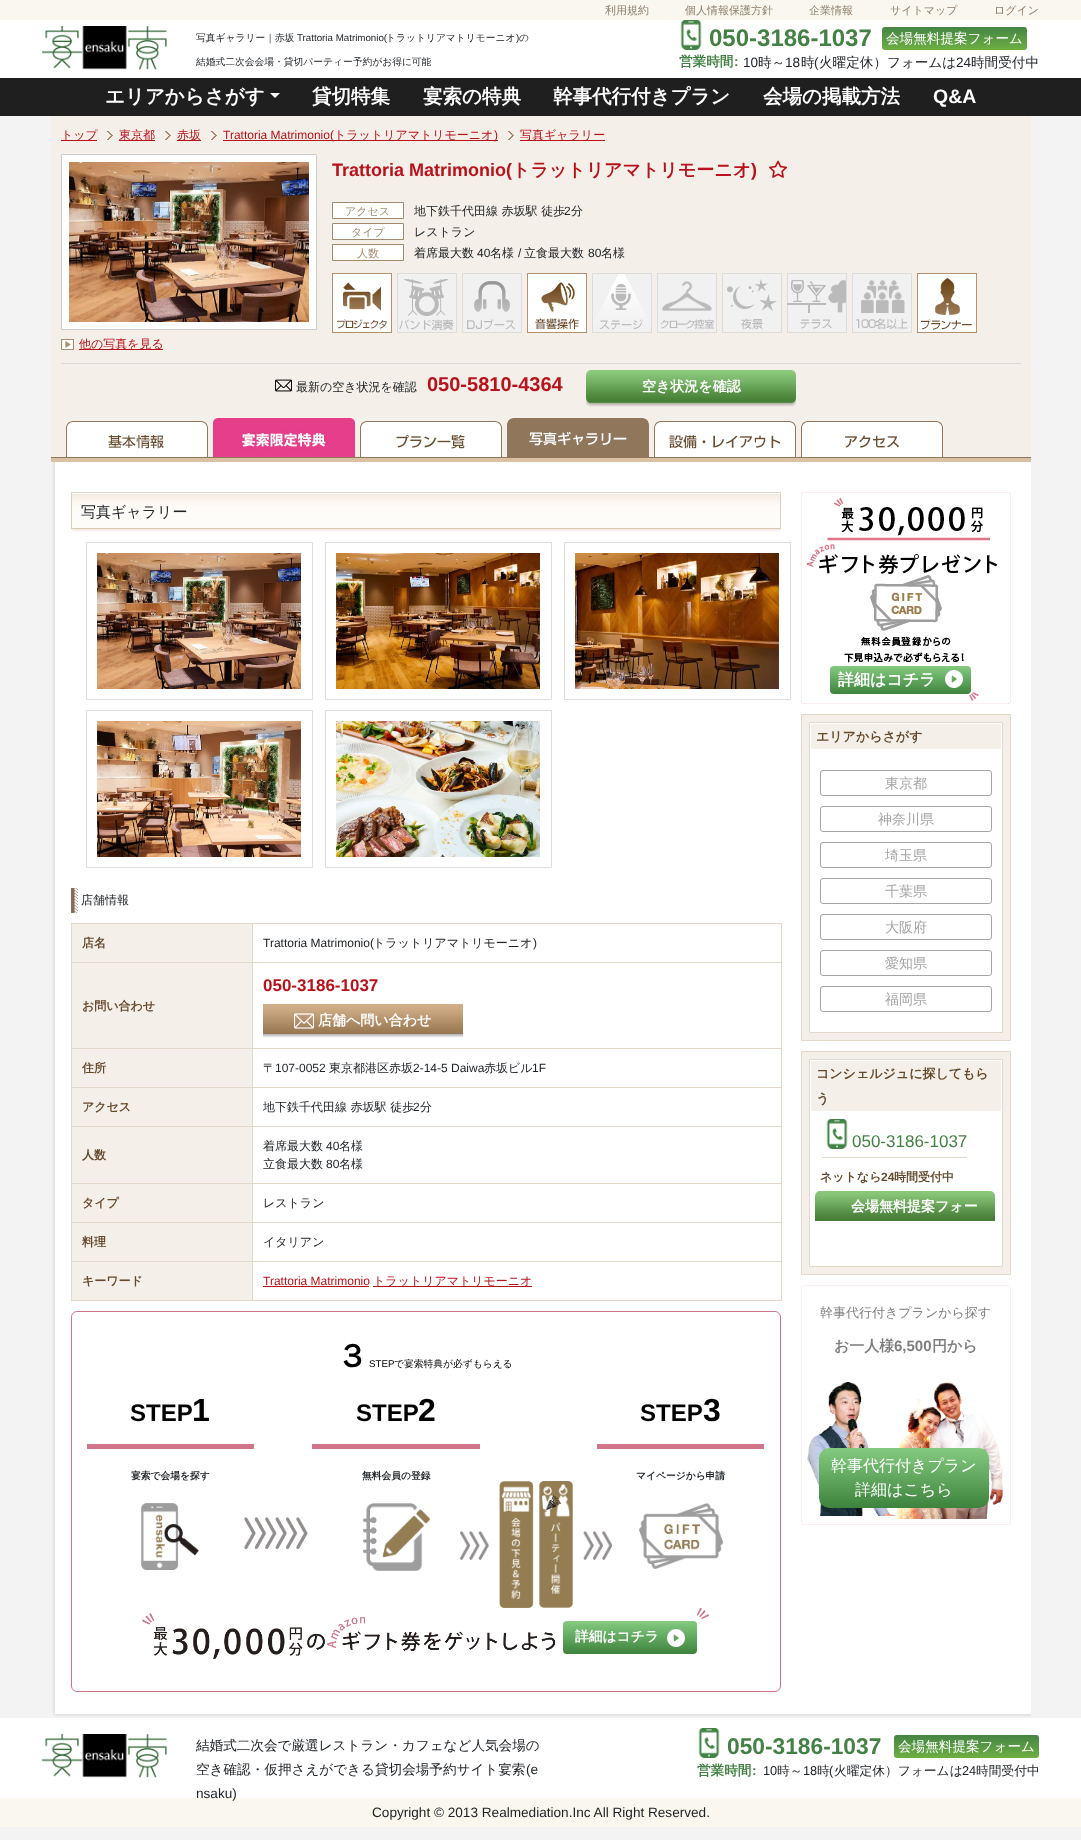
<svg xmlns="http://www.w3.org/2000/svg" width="1081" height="1840">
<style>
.a{font:500 11px WenQuanYi Zen Hei;fill:#8e7d6a}
.b{font:500 9.75px WenQuanYi Zen Hei;fill:#212529}
.c{font:9.75px Liberation Sans;fill:#212529}
.d{font:bold 24px Liberation Sans;fill:#438244}
.e{font:500 13.6px WenQuanYi Zen Hei;fill:#fff}
.f{font:bold 13.6px WenQuanYi Zen Hei;fill:#438244}
.g{font:bold 13.6px Liberation Sans;fill:#438244}
.h{font:13.6px Liberation Sans;fill:#212529}
.i{font:500 13.6px WenQuanYi Zen Hei;fill:#212529}
.j{font:bold 19.5px WenQuanYi Zen Hei;fill:#fff}
.k{font:bold 19.5px Liberation Sans;fill:#fff}
.l{font:500 12px WenQuanYi Zen Hei;fill:#b9121b}
.m{font:12px Liberation Sans;fill:#b9121b}
.n{font:bold 18px Liberation Sans;fill:#b9121b}
.o{font:bold 18px WenQuanYi Zen Hei;fill:#b9121b}
.p{font:500 11px WenQuanYi Zen Hei;fill:#a48a6d}
.q{font:500 12px WenQuanYi Zen Hei;fill:#212529}
.r{font:12px Liberation Sans;fill:#212529}
.s{font:bold 20px Liberation Sans;fill:#b9121b}
.t{font:bold 14px WenQuanYi Zen Hei;fill:#fff}
.u{font:500 15px WenQuanYi Zen Hei;fill:#212529}
.v{font:bold 12px WenQuanYi Zen Hei;fill:#64492a}
.w{font:bold 17px Liberation Sans;fill:#b9121b}
.x{font:bold 32px WenQuanYi Zen Hei;fill:#000}
.y{font:9.75px Liberation Sans;fill:#000}
.z{font:500 9.75px WenQuanYi Zen Hei;fill:#000}
.a1{font:bold 24px Liberation Sans;fill:#000}
.b1{font:bold 32px Liberation Sans;fill:#000}
.c1{font:bold 9.75px WenQuanYi Zen Hei;fill:#212529}
.d1{font:bold 13.75px WenQuanYi Zen Hei;fill:#fff}
.e1{font:bold 16px WenQuanYi Zen Hei;fill:#fff}
.f1{font:bold 13px WenQuanYi Zen Hei;fill:#64492a}
.g1{font:500 14px WenQuanYi Zen Hei;fill:#a5a5a5}
.h1{font:17px Liberation Sans;fill:#438244}
.i1{font:bold 12px Liberation Sans;fill:#64492a}
.j1{font:500 13px WenQuanYi Zen Hei;fill:#7e7e7e}
.k1{font:bold 15px WenQuanYi Zen Hei;fill:#7e7e7e}
.l1{font:bold 15px Liberation Sans;fill:#7e7e7e}
.m1{font:500 16px WenQuanYi Zen Hei;fill:#fff}
.n1{font:bold 22.75px Liberation Sans;fill:#438244}
.o1{font:12.75px Liberation Sans;fill:#212529}
.p1{font:500 12.75px WenQuanYi Zen Hei;fill:#212529}
</style>
<defs>
<linearGradient id="g1" gradientUnits="userSpaceOnUse" x1="955" y1="27" x2="955" y2="50"><stop offset="0" stop-color="#458444"/><stop offset="1" stop-color="#6daf42"/></linearGradient>
<linearGradient id="g2" gradientUnits="userSpaceOnUse" x1="630" y1="1621" x2="630" y2="1654"><stop offset="0" stop-color="#84cb80"/><stop offset="1" stop-color="#3e833d"/></linearGradient>
<linearGradient id="g3" gradientUnits="userSpaceOnUse" x1="901" y1="666" x2="901" y2="694"><stop offset="0" stop-color="#84cb80"/><stop offset="1" stop-color="#3e833d"/></linearGradient>
<linearGradient id="g4" gradientUnits="userSpaceOnUse" x1="904" y1="1448" x2="904" y2="1508"><stop offset="0" stop-color="#84cb80"/><stop offset="1" stop-color="#3e833d"/></linearGradient>
<linearGradient id="g5" gradientUnits="userSpaceOnUse" x1="967" y1="1735" x2="967" y2="1758"><stop offset="0" stop-color="#458444"/><stop offset="1" stop-color="#6daf42"/></linearGradient>
</defs>
<rect width="100%" height="100%" fill="#f3f3f3"/>
<path fill="#faf7ee" d="M0 0h1081v20H0z"/>
<path fill="#fff" d="M0 20h1081v58H0z"/>
<image href="1.png" x="42" y="26" width="125" height="44"/>
<image href="2.png" x="680" y="20" width="22" height="30"/>
<rect fill="url(#g1)" x="882" y="27" width="145" height="23" rx="3"/>
<path fill="#1f1f1f" d="M0 78h1081v38H0z"/>
<path fill="#fff" d="M270 93h10l-5 5z"/>
<image href="3.png" x="52" y="462" width="979" height="1250"/>
<path fill="#f4efe8" d="M51 116h980v341H51z"/>
<path fill="#b9121b" d="M61 140h36v1H61z"/>
<image href="4.png" x="107" y="131" width="6" height="9"/>
<path fill="#b9121b" d="M119 140h36v1H119z"/>
<image href="4.png" x="165" y="131" width="6" height="9"/>
<path fill="#b9121b" d="M177 140h24v1H177z"/>
<image href="4.png" x="211" y="131" width="6" height="9"/>
<path fill="#b9121b" d="M223 140h275v1H223z"/>
<image href="4.png" x="508" y="131" width="6" height="9"/>
<path fill="#b9121b" d="M520 140h85v1H520z"/>
<image href="5.png" x="769" y="160" width="18" height="18"/>
<path fill="#fff" stroke="#a48a6d" d="M332.5 202.5h71v16H332.5z"/>
<path fill="#fff" stroke="#a48a6d" d="M332.5 223.5h71v16H332.5z"/>
<path fill="#fff" stroke="#a48a6d" d="M332.5 244.5h71v16H332.5z"/>
<image href="6.png" x="332" y="273" width="60" height="60"/>
<image href="7.png" x="397" y="273" width="60" height="60"/>
<image href="8.png" x="462" y="273" width="60" height="60"/>
<image href="9.png" x="527" y="273" width="60" height="60"/>
<image href="10.png" x="592" y="273" width="60" height="60"/>
<image href="11.png" x="657" y="273" width="60" height="60"/>
<image href="12.png" x="722" y="273" width="60" height="60"/>
<image href="13.png" x="787" y="273" width="60" height="60"/>
<image href="14.png" x="852" y="273" width="60" height="60"/>
<image href="15.png" x="917" y="273" width="60" height="60"/>
<path fill="#fff" stroke="#ccc" d="M61.5 154.5h255v175H61.5z"/>
<image href="16.png" x="69" y="162" width="240" height="160"/>
<image href="17.png" x="61" y="339" width="13" height="11"/>
<path fill="#b9121b" d="M79 349h84v1H79z"/>
<path fill="#dadada" d="M61 363h960v1H61z"/>
<image href="18.png" x="275" y="378" width="17" height="15"/>
<image href="19.png" x="586" y="370" width="210" height="37"/>
<path fill="#dbc1a4" d="M51 458h980v4H51z"/>
<path fill="#90765a" d="M51 457h980v1H51z"/>
<image href="20.png" x="66" y="421" width="142" height="36"/>
<image href="21.png" x="213" y="418" width="142" height="39"/>
<image href="22.png" x="360" y="421" width="142" height="36"/>
<image href="23.png" x="507" y="418" width="142" height="39"/>
<image href="24.png" x="654" y="421" width="142" height="36"/>
<image href="25.png" x="801" y="421" width="142" height="36"/>
<image href="26.png" x="71" y="492" width="710" height="40"/>
<path fill="none" stroke="#ddd" d="M86.5 542.5h226v157H86.5z"/>
<image href="27.png" x="97" y="553" width="204" height="136"/>
<path fill="none" stroke="#ddd" d="M325.5 542.5h226v157H325.5z"/>
<image href="28.png" x="336" y="553" width="204" height="136"/>
<path fill="none" stroke="#ddd" d="M564.5 542.5h226v157H564.5z"/>
<image href="29.png" x="575" y="553" width="204" height="136"/>
<path fill="none" stroke="#ddd" d="M86.5 710.5h226v157H86.5z"/>
<image href="30.png" x="97" y="721" width="204" height="136"/>
<path fill="none" stroke="#ddd" d="M325.5 710.5h226v157H325.5z"/>
<image href="31.png" x="336" y="721" width="204" height="136"/>
<image href="32.png" x="71" y="888" width="7" height="25"/>
<path fill="#e1d8ca" d="M71 923h711v1H71z"/>
<path fill="#e1d8ca" d="M781 923h1v378H781z"/>
<path fill="#e1d8ca" d="M71 1300h711v1H71z"/>
<path fill="#e1d8ca" d="M71 923h1v378H71z"/>
<path fill="#f4efe8" d="M72 924h180v38H72z"/>
<path fill="#e1d8ca" d="M71 962h711v1H71z"/>
<path fill="#f4efe8" d="M72 963h180v85H72z"/>
<image href="33.png" x="263" y="1004" width="200" height="34"/>
<image href="34.png" x="294" y="1013" width="20" height="16"/>
<path fill="#e1d8ca" d="M71 1048h711v1H71z"/>
<path fill="#f4efe8" d="M72 1049h180v38H72z"/>
<path fill="#e1d8ca" d="M71 1087h711v1H71z"/>
<path fill="#f4efe8" d="M72 1088h180v38H72z"/>
<path fill="#e1d8ca" d="M71 1126h711v1H71z"/>
<path fill="#f4efe8" d="M72 1127h180v56H72z"/>
<path fill="#e1d8ca" d="M71 1183h711v1H71z"/>
<path fill="#f4efe8" d="M72 1184h180v38H72z"/>
<path fill="#e1d8ca" d="M71 1222h711v1H71z"/>
<path fill="#f4efe8" d="M72 1223h180v38H72z"/>
<path fill="#e1d8ca" d="M71 1261h711v1H71z"/>
<path fill="#f4efe8" d="M72 1262h180v38H72z"/>
<path fill="#e1d8ca" d="M252 923h1v378H252z"/>
<path fill="#b9121b" d="M263 1286h106v1H263z"/>
<path fill="#b9121b" d="M373 1286h159v1H373z"/>
<rect fill="none" stroke="#d1768a" x="71.5" y="1311.5" width="709" height="380" rx="5.5"/>
<path fill="#d1768a" d="M87 1444h167v5H87z"/>
<image href="35.png" x="141" y="1503" width="58" height="67"/>
<image href="36.png" x="244" y="1517" width="64" height="32"/>
<path fill="#d1768a" d="M312 1444h168v5H312z"/>
<image href="37.png" x="363" y="1503" width="67" height="68"/>
<path fill="#d1768a" d="M597 1444h167v5H597z"/>
<image href="38.png" x="460" y="1481" width="152" height="127"/>
<image href="39.png" x="639" y="1503" width="84" height="66"/>
<image href="40.png" x="142" y="1607" width="567" height="52"/>
<rect fill="url(#g2)" x="563" y="1621" width="134" height="33" rx="4"/>
<image href="41.png" x="667" y="1629" width="18" height="18"/>
<image href="42.png" x="801" y="492" width="210" height="212"/>
<rect fill="url(#g3)" x="830" y="666" width="141" height="28" rx="4"/>
<image href="43.png" x="945" y="670" width="18" height="18"/>
<path fill="#f4efe8" stroke="#e1d8ca" d="M801.5 714.5h209v326H801.5z"/>
<path fill="#fff" stroke="#e1d8ca" d="M809.5 722.5h193v310H809.5z"/>
<path fill="#f4efe8" d="M811 724h190v25H811z"/>
<rect fill="none" stroke="#a5a5a5" x="820.5" y="770.5" width="171" height="25" rx="2.5"/>
<rect fill="none" stroke="#a5a5a5" x="820.5" y="806.5" width="171" height="25" rx="2.5"/>
<rect fill="none" stroke="#a5a5a5" x="820.5" y="842.5" width="171" height="25" rx="2.5"/>
<rect fill="none" stroke="#a5a5a5" x="820.5" y="878.5" width="171" height="25" rx="2.5"/>
<rect fill="none" stroke="#a5a5a5" x="820.5" y="914.5" width="171" height="25" rx="2.5"/>
<rect fill="none" stroke="#a5a5a5" x="820.5" y="950.5" width="171" height="25" rx="2.5"/>
<rect fill="none" stroke="#a5a5a5" x="820.5" y="986.5" width="171" height="25" rx="2.5"/>
<path fill="#f4efe8" stroke="#e1d8ca" d="M801.5 1051.5h209v223H801.5z"/>
<path fill="#fff" stroke="#e1d8ca" d="M809.5 1059.5h193v207H809.5z"/>
<path fill="#f4efe8" d="M811 1061h190v50H811z"/>
<path fill="#e1d8ca" d="M822 1157h145v1H822z"/>
<image href="44.png" x="826" y="1119" width="22" height="30"/>
<image href="45.png" x="815" y="1191" width="180" height="30"/>
<rect fill="none" stroke="#fbedf0" x="801.5" y="1285.5" width="209" height="239" rx="2.5"/>
<image href="46.png" x="807" y="1382" width="89" height="134"/>
<image href="47.png" x="897" y="1382" width="107" height="137"/>
<rect fill="url(#g4)" x="819" y="1448" width="170" height="60" rx="10"/>
<image href="48.png" x="53" y="1712" width="978" height="5"/>
<path fill="#fff" d="M0 1718h1081v80H0z"/>
<image href="49.png" x="42" y="1734" width="125" height="44"/>
<image href="44.png" x="698" y="1728" width="22" height="30"/>
<rect fill="url(#g5)" x="894" y="1735" width="145" height="23" rx="3"/>
<path fill="#faf7ee" d="M0 1798h1081v29H0z"/>
<text class="a" x="605" y="14">利用規約</text>
<text class="a" x="685" y="14">個人情報保護方針</text>
<text class="a" x="809" y="14">企業情報</text>
<text class="a" x="890" y="14">サイトマップ</text>
<text class="a" x="994" y="14">ログイン</text>
<text class="b" x="196" y="41">写真ギャラリー｜赤坂</text>
<text class="c" x="297" y="41">Trattoria Matrimonio(</text>
<text class="b" x="386" y="41">トラットリアマトリモーニオ</text>
<text class="c" x="516" y="41">)</text>
<text class="b" x="519" y="41">の</text>
<text class="b" x="196" y="65">結婚式二次会会場・貸切パーティー予約がお得に可能</text>
<text class="d" x="709" y="46">050-3186-1037</text>
<text class="e" x="886" y="43">会場無料提案フォーム</text>
<text class="f" x="679" y="66">営業時間</text>
<text class="g" x="734" y="66">:</text>
<text class="h" x="743" y="67">10</text>
<text class="i" x="758" y="67">時～</text>
<text class="h" x="785" y="67">18</text>
<text class="i" x="801" y="67">時</text>
<text class="h" x="814" y="67">(</text>
<text class="i" x="819" y="67">火曜定休）フォームは</text>
<text class="h" x="956" y="67">24</text>
<text class="i" x="971" y="67">時間受付中</text>
<text class="j" x="105" y="103">エリアからさがす</text>
<text class="j" x="312" y="103">貸切特集</text>
<text class="j" x="423" y="103">宴索の特典</text>
<text class="j" x="553" y="103">幹事代行付きプラン</text>
<text class="j" x="763" y="103">会場の掲載方法</text>
<text class="k" x="933" y="103">Q&amp;A</text>
<text class="l" x="61" y="139">トップ</text>
<text class="l" x="119" y="139">東京都</text>
<text class="l" x="177" y="139">赤坂</text>
<text class="m" x="223" y="139">Trattoria Matrimonio(</text>
<text class="l" x="334" y="139">トラットリアマトリモーニオ</text>
<text class="m" x="494" y="139">)</text>
<text class="l" x="520" y="139">写真ギャラリー</text>
<text class="n" x="332" y="176">Trattoria Matrimonio(</text>
<text class="o" x="512" y="176">トラットリアマトリモーニオ</text>
<text class="n" x="751" y="176">)</text>
<text class="p" x="345" y="215">アクセス</text>
<text class="q" x="414" y="215">地下鉄千代田線 赤坂駅 徒歩</text>
<text class="r" x="564" y="215">2</text>
<text class="q" x="571" y="215">分</text>
<text class="p" x="351" y="236">タイプ</text>
<text class="q" x="414" y="236">レストラン</text>
<text class="p" x="357" y="257">人数</text>
<text class="q" x="414" y="257">着席最大数</text>
<text class="r" x="477" y="257">40</text>
<text class="q" x="490" y="257">名様</text>
<text class="r" x="518" y="257">/</text>
<text class="q" x="524" y="257">立食最大数</text>
<text class="r" x="588" y="257">80</text>
<text class="q" x="601" y="257">名様</text>
<text class="l" x="79" y="348">他の写真を見る</text>
<text class="q" x="296" y="391">最新の空き状況を確認</text>
<text class="s" x="427" y="391">050-5810-4364</text>
<text class="t" x="642" y="391">空き状況を確認</text>
<text class="u" x="81" y="517">写真ギャラリー</text>
<text class="q" x="81" y="904">店舗情報</text>
<text class="v" x="82" y="947">店名</text>
<text class="r" x="263" y="947">Trattoria Matrimonio(</text>
<text class="q" x="373" y="947">トラットリアマトリモーニオ</text>
<text class="r" x="533" y="947">)</text>
<text class="v" x="82" y="1010">お問い合わせ</text>
<text class="w" x="263" y="991">050-3186-1037</text>
<text class="t" x="318" y="1025">店舗へ問い合わせ</text>
<text class="v" x="82" y="1072">住所</text>
<text class="q" x="263" y="1072">〒</text>
<text class="r" x="275" y="1072">107-0052</text>
<text class="q" x="329" y="1072">東京都港区赤坂</text>
<text class="r" x="413" y="1072">2-14-5 Daiwa</text>
<text class="q" x="484" y="1072">赤坂ビル</text>
<text class="r" x="532" y="1072">1F</text>
<text class="v" x="82" y="1111">アクセス</text>
<text class="q" x="263" y="1111">地下鉄千代田線 赤坂駅 徒歩</text>
<text class="r" x="413" y="1111">2</text>
<text class="q" x="420" y="1111">分</text>
<text class="v" x="82" y="1159">人数</text>
<text class="q" x="263" y="1150">着席最大数</text>
<text class="r" x="326" y="1150">40</text>
<text class="q" x="339" y="1150">名様</text>
<text class="q" x="263" y="1168">立食最大数</text>
<text class="r" x="326" y="1168">80</text>
<text class="q" x="339" y="1168">名様</text>
<text class="v" x="82" y="1207">タイプ</text>
<text class="q" x="263" y="1207">レストラン</text>
<text class="v" x="82" y="1246">料理</text>
<text class="q" x="263" y="1246">イタリアン</text>
<text class="v" x="82" y="1285">キーワード</text>
<text class="m" x="263" y="1285">Trattoria Matrimonio</text>
<text class="l" x="373" y="1285">トラットリアマトリモーニオ</text>
<text class="x" x="336" y="1367">３</text>
<text class="y" x="369" y="1367">STEP</text>
<text class="z" x="394" y="1367">で宴索特典が必ずもらえる</text>
<text class="a1" x="130" y="1421">STEP</text>
<text class="b1" x="192" y="1421">1</text>
<text class="c1" x="131" y="1479">宴索で会場を探す</text>
<text class="a1" x="356" y="1421">STEP</text>
<text class="b1" x="418" y="1421">2</text>
<text class="c1" x="362" y="1479">無料会員の登録</text>
<text class="a1" x="640" y="1421">STEP</text>
<text class="b1" x="703" y="1421">3</text>
<text class="c1" x="636" y="1479">マイページから申請</text>
<text class="d1" x="575" y="1641">詳細はコチラ</text>
<text class="e1" x="838" y="685">詳細はコチラ</text>
<text class="f1" x="816" y="741">エリアからさがす</text>
<text class="g1" x="885" y="788">東京都</text>
<text class="g1" x="878" y="824">神奈川県</text>
<text class="g1" x="885" y="860">埼玉県</text>
<text class="g1" x="885" y="896">千葉県</text>
<text class="g1" x="885" y="932">大阪府</text>
<text class="g1" x="885" y="968">愛知県</text>
<text class="g1" x="885" y="1004">福岡県</text>
<text class="f1" x="816" y="1078">コンシェルジュに探してもら</text>
<text class="f1" x="816" y="1103">う</text>
<text class="h1" x="852" y="1147">050-3186-1037</text>
<text class="v" x="820" y="1181">ネットなら</text>
<text class="i1" x="881" y="1181">24</text>
<text class="v" x="894" y="1181">時間受付中</text>
<text class="t" x="851" y="1211">会場無料提案フォー</text>
<text class="j1" x="820" y="1317">幹事代行付きプランから探す</text>
<text class="k1" x="834" y="1351">お一人様</text>
<text class="l1" x="894" y="1351">6,500</text>
<text class="k1" x="932" y="1351">円から</text>
<text class="m1" x="831" y="1471">幹事代行付きプラン</text>
<text class="m1" x="855" y="1495">詳細はこちら</text>
<text class="i" x="196" y="1750">結婚式二次会で厳選レストラン・カフェなど人気会場の</text>
<text class="i" x="196" y="1774">空き確認・仮押さえができる貸切会場予約サイト宴索</text>
<text class="h" x="526" y="1774">(e</text>
<text class="h" x="196" y="1798">nsaku)</text>
<text class="n1" x="727" y="1754">050-3186-1037</text>
<text class="e" x="898" y="1751">会場無料提案フォーム</text>
<text class="f" x="697" y="1775">営業時間</text>
<text class="g" x="752" y="1775">:</text>
<text class="o1" x="763" y="1775">10</text>
<text class="p1" x="777" y="1775">時～</text>
<text class="o1" x="803" y="1775">18</text>
<text class="p1" x="817" y="1775">時</text>
<text class="o1" x="829" y="1775">(</text>
<text class="p1" x="834" y="1775">火曜定休）フォームは</text>
<text class="o1" x="962" y="1775">24</text>
<text class="p1" x="976" y="1775">時間受付中</text>
<text class="h" x="372" y="1817">Copyright © 2013 Realmediation.Inc All Right Reserved.</text>
</svg>
